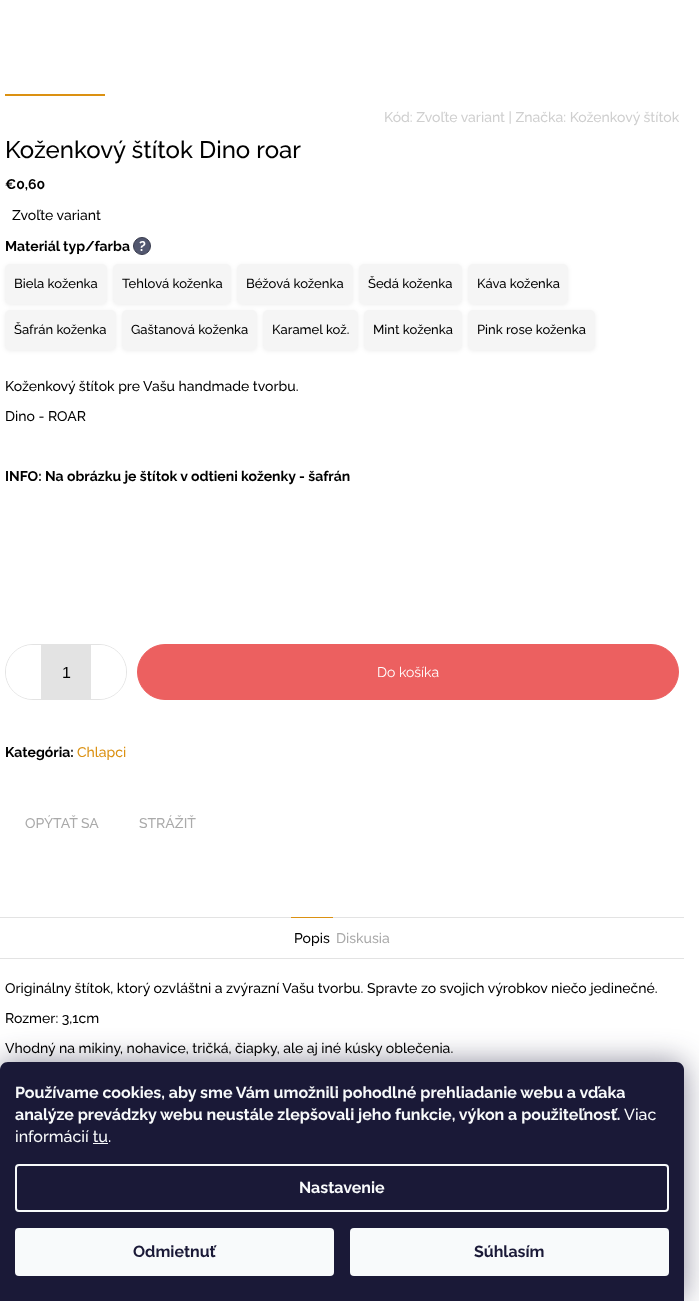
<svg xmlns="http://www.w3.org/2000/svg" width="699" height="1301">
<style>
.a{font:500 14px Raleway;fill:#cfcfcf}
.b{font:500 24px Raleway;fill:#000}
.c{font:bold 14px Raleway;fill:#000}
.d{font:500 14px Raleway;fill:#000}
.e{font:bold 14px Raleway;fill:#fff}
.f{font:500 13px Raleway;fill:#000}
.g{font:16px Liberation Sans;fill:#000}
.h{font:14px Raleway;fill:#fff}
.i{font:500 14px Raleway;fill:#db9112}
.j{font:500 14px Raleway;fill:#aaa}
.k{font:bold 16px Raleway;fill:#f8fafb}
.l{font:500 16px Raleway;fill:#f8fafb}
.m{font:bold 16px Raleway;fill:#1a1937}
</style>
<rect width="100%" height="100%" fill="#fff"/>
<path fill="#db9112" d="M5 94h100v2H5z"/>
<circle fill="#52576f" stroke="#393c4d" cx="142" cy="246" r="8.5"/>
<rect fill="#00000012" filter="blur(2px)" x="5" y="265" width="102" height="40" rx="5"/>
<rect fill="#f5f5f5" x="5" y="264" width="102" height="40" rx="5"/>
<rect fill="#00000012" filter="blur(2px)" x="113" y="265" width="118" height="40" rx="5"/>
<rect fill="#f5f5f5" x="113" y="264" width="118" height="40" rx="5"/>
<rect fill="#00000012" filter="blur(2px)" x="237" y="265" width="116" height="40" rx="5"/>
<rect fill="#f5f5f5" x="237" y="264" width="116" height="40" rx="5"/>
<rect fill="#00000012" filter="blur(2px)" x="359" y="265" width="103" height="40" rx="5"/>
<rect fill="#f5f5f5" x="359" y="264" width="103" height="40" rx="5"/>
<rect fill="#00000012" filter="blur(2px)" x="468" y="265" width="100" height="40" rx="5"/>
<rect fill="#f5f5f5" x="468" y="264" width="100" height="40" rx="5"/>
<rect fill="#00000012" filter="blur(2px)" x="5" y="311" width="111" height="40" rx="5"/>
<rect fill="#f5f5f5" x="5" y="310" width="111" height="40" rx="5"/>
<rect fill="#00000012" filter="blur(2px)" x="122" y="311" width="135" height="40" rx="5"/>
<rect fill="#f5f5f5" x="122" y="310" width="135" height="40" rx="5"/>
<rect fill="#00000012" filter="blur(2px)" x="263" y="311" width="95" height="40" rx="5"/>
<rect fill="#f5f5f5" x="263" y="310" width="95" height="40" rx="5"/>
<rect fill="#00000012" filter="blur(2px)" x="364" y="311" width="98" height="40" rx="5"/>
<rect fill="#f5f5f5" x="364" y="310" width="98" height="40" rx="5"/>
<rect fill="#00000012" filter="blur(2px)" x="468" y="311" width="127" height="40" rx="5"/>
<rect fill="#f5f5f5" x="468" y="310" width="127" height="40" rx="5"/>
<rect fill="none" stroke="#e3e3e3" x="5.5" y="644.5" width="121" height="55" rx="27.5"/>
<path fill="#fff" d="M33 645h8v54h-8c-15 0-27-12-27-27c0-15 12-27 27-27z"/>
<path fill="#e3e3e3" d="M41 645h50v54H41z"/>
<path fill="#fff" d="M91 645h8c15 0 27 12 27 27c0 15-12 27-27 27h-8z"/>
<rect fill="#ec6060" stroke="#ec6060" x="137.5" y="644.5" width="541" height="55" rx="27.5"/>
<path fill="#e3e3e3" d="M0 917h684v1H0z"/>
<path fill="#e3e3e3" d="M0 958h684v1H0z"/>
<path fill="#db9112" d="M291 917h42v1H291z"/>
<rect fill="#1b193980" filter="blur(15px)" y="1062" width="684" height="239" rx="8"/>
<path fill="#1a1937" d="M8 1062h668c4.5 0 8 3.5 8 8v231h-684v-231c0-4.5 3.5-8 8-8z"/>
<path fill="#f8fafb" d="M93 1143h15v1H93z"/>
<rect fill="none" stroke="#f8fafb" stroke-width="2" x="16" y="1165" width="652" height="46" rx="3"/>
<rect fill="#f8fafb" x="15" y="1228" width="319" height="48" rx="4"/>
<rect fill="#f8fafb" x="350" y="1228" width="319" height="48" rx="4"/>
<text class="a" x="384" y="122">Kód: Zvoľte variant | Značka: Koženkový štítok</text>
<text class="b" x="5" y="158">Koženkový štítok Dino roar</text>
<text class="c" x="5" y="189">€0,60</text>
<text class="d" x="12" y="220">Zvoľte variant</text>
<text class="c" x="5" y="251">Materiál typ/farba</text>
<text class="e" x="139" y="251">?</text>
<text class="f" x="14" y="288">Biela koženka</text>
<text class="f" x="122" y="288">Tehlová koženka</text>
<text class="f" x="246" y="288">Béžová koženka</text>
<text class="f" x="368" y="288">Šedá koženka</text>
<text class="f" x="477" y="288">Káva koženka</text>
<text class="f" x="14" y="334">Šafrán koženka</text>
<text class="f" x="131" y="334">Gaštanová koženka</text>
<text class="f" x="272" y="334">Karamel kož.</text>
<text class="f" x="373" y="334">Mint koženka</text>
<text class="f" x="477" y="334">Pink rose koženka</text>
<text class="d" x="5" y="391">Koženkový štítok pre Vašu handmade tvorbu.</text>
<text class="d" x="5" y="421">Dino - ROAR</text>
<text class="c" x="5" y="481">INFO: Na obrázku je štítok v odtieni koženky - šafrán</text>
<text class="g" x="62" y="678">1</text>
<text class="h" x="377" y="677">Do košíka</text>
<text class="c" x="5" y="757">Kategória:</text>
<text class="i" x="77" y="757">Chlapci</text>
<text class="j" x="25" y="828">OPÝTAŤ SA</text>
<text class="j" x="139" y="828">STRÁŽIŤ</text>
<text class="d" x="294" y="943">Popis</text>
<text class="j" x="336" y="943">Diskusia</text>
<text class="d" x="5" y="993">Originálny štítok, ktorý ozvláštni a zvýrazní Vašu tvorbu. Spravte zo svojich výrobkov niečo jedinečné.</text>
<text class="d" x="5" y="1023">Rozmer: 3,1cm</text>
<text class="d" x="5" y="1053">Vhodný na mikiny, nohavice, tričká, čiapky, ale aj iné kúsky oblečenia.</text>
<text class="k" x="15" y="1098">Používame cookies, aby sme Vám umožnili pohodlné prehliadanie webu a vďaka</text>
<text class="k" x="15" y="1120">analýze prevádzky webu neustále zlepšovali jeho funkcie, výkon a použiteľnosť.</text>
<text class="l" x="624" y="1120">Viac</text>
<text class="l" x="15" y="1142">informácií tu.</text>
<text class="k" x="299" y="1193">Nastavenie</text>
<text class="m" x="133" y="1257">Odmietnuť</text>
<text class="m" x="474" y="1257">Súhlasím</text>
</svg>
